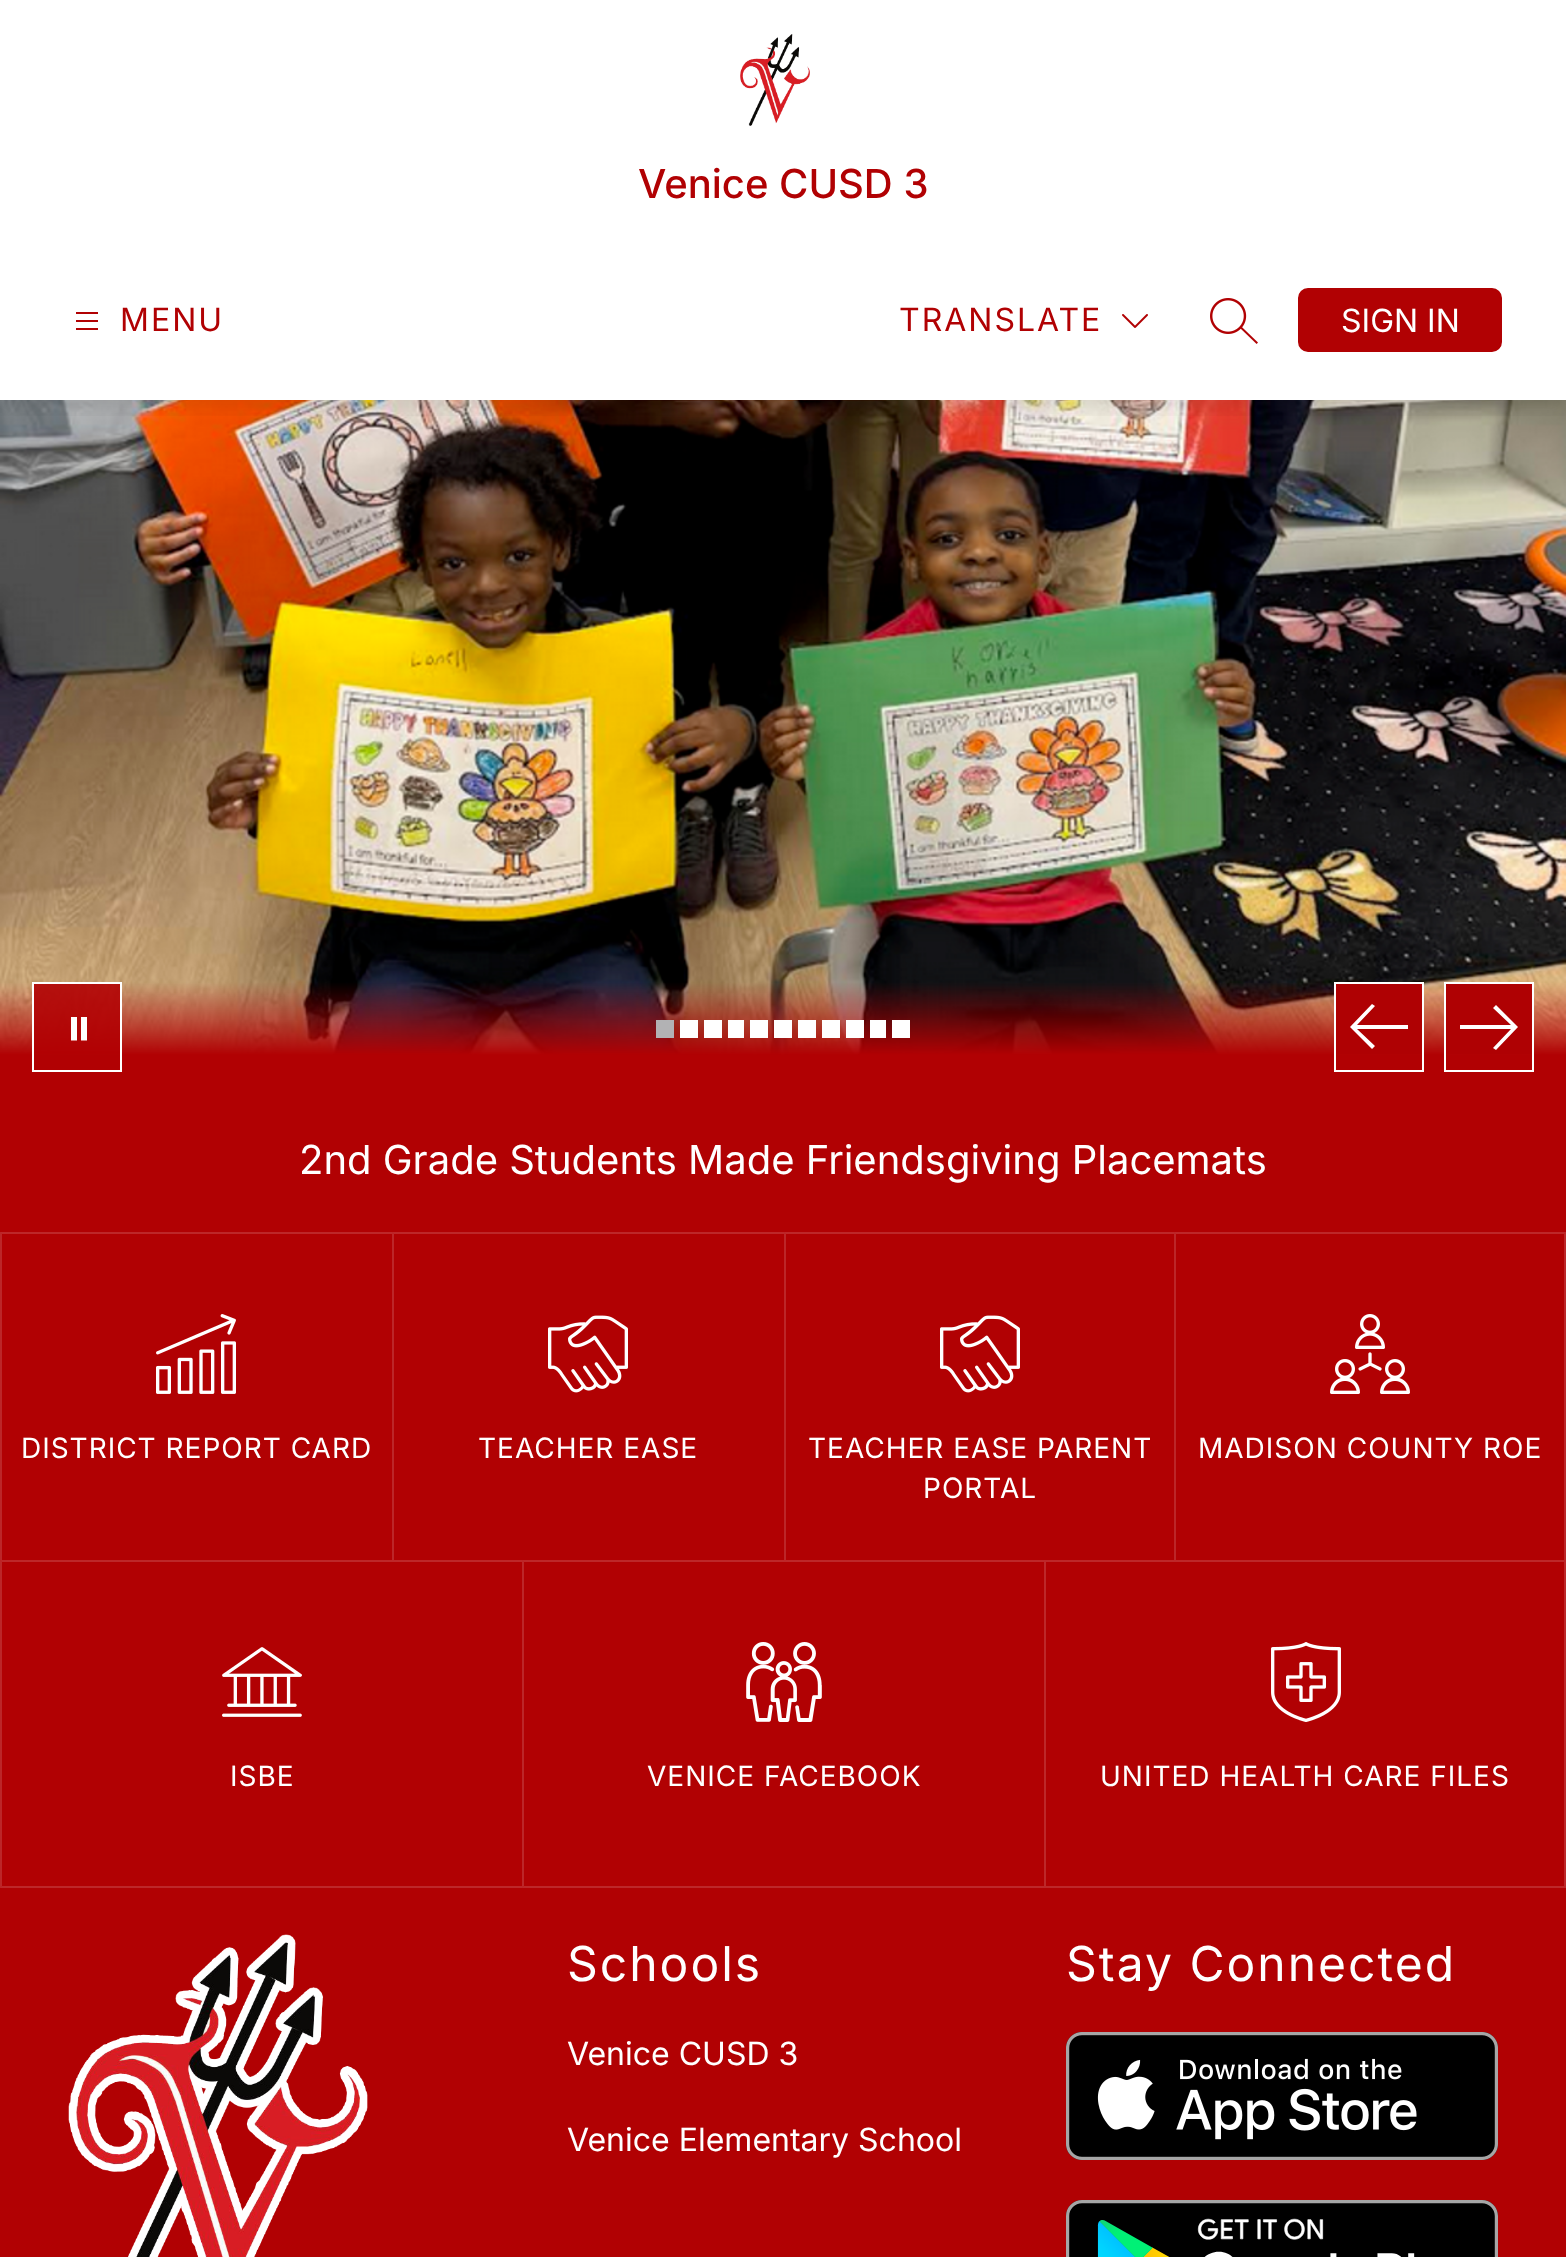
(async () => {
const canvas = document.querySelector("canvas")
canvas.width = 1566
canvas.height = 2257
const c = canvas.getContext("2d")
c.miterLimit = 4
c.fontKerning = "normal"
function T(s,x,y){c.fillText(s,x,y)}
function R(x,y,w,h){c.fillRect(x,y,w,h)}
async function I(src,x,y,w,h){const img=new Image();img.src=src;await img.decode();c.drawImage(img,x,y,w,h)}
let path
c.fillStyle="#fff"
R(0,0,1566,2257)
await I("5.png",0,400,1566,672)
c.save()
c.beginPath()
c.rect(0,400,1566,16)
c.clip()
c.fillStyle="#0000001a"
c.filter="blur(10px)"
c.beginPath()
c.rect(0,8,1566,400)
c.fill()
c.filter="none"
c.restore()
await I("1.png",740,34,70,92)
c.font="500 40px Inter"
c.fillStyle="#b10103"
T("Venice CUSD 3",638,198)
await I("2.png",76,312,22,18)
c.letterSpacing="2px"
c.font="32px Inter"
T("MENU",120,331)
T("TRANSLATE",899,331)
await I("3.png",1122,314,26,14)
await I("4.png",1210,298,48,46)
c.beginPath()
c.roundRect(1299,289,202,62,9)
c.fill()
c.strokeStyle="#b10103"
c.lineWidth=2
c.stroke()
c.letterSpacing="0px"
c.fillStyle="#fff"
T("SIGN IN",1341,332)
c.fillStyle="#b10103"
R(0,1072,1566,160)
c.fillStyle="#b10103e6"
R(34,984,86,70)
path = new Path2D("M33 983h88v88h-88z")
c.strokeStyle="#fff"
c.stroke(path)
c.fillStyle="#fff"
path = new Path2D("M77 1017h-6v23.5h6zm10 0h-6v23.5h6z")
c.fill(path,"evenodd")
c.fillStyle="#b2b2b4"
R(656,1020,18,18)
c.fillStyle="#fff"
R(680,1020,18,18)
R(704,1020,18,18)
R(728,1020,16,18)
R(750,1020,18,18)
R(774,1020,18,18)
R(798,1020,18,18)
R(822,1020,18,18)
R(846,1020,18,18)
R(870,1020,16,18)
R(892,1020,18,18)
c.fillStyle="#af0103"
R(1336,984,86,70)
path = new Path2D("M1423 1071h-88v-88h88z")
c.stroke(path)
c.fillStyle="#fff"
path = new Path2D("M1372 1049l-22-22l22-23l3 2l-18 19h51v4h-51l18 17z")
c.fill(path)
c.fillStyle="#af0103"
R(1446,984,86,70)
path = new Path2D("M1445 983h88v88h-88z")
c.stroke(path)
c.fillStyle="#fff"
path = new Path2D("M1496 1005l22 22l-22 23l-3-2l18-19h-51v-4h51l-18-17z")
c.fill(path)
c.font="40px Inter"
T("2nd Grade Students Made Friendsgiving Placemats",299,1174)
c.fillStyle="#b10103"
R(0,1232,1566,328)
c.fillStyle="#bd2729"
path = new Path2D("M0 1232h392v2h-390z")
c.fill(path)
c.fillStyle="#ffffff26"
path = new Path2D("M0 1560v-328l2 2v326z")
c.fill(path)
await I("6.png",156,1314,80,80)
c.letterSpacing="1px"
c.font="28px Inter"
c.fillStyle="#fff"
T("DISTRICT REPORT CARD",21,1458)
c.fillStyle="#bd2729"
path = new Path2D("M392 1232h392v2h-390z")
c.fill(path)
c.fillStyle="#ffffff26"
path = new Path2D("M392 1560v-328l2 2v326z")
c.fill(path)
await I("7.png",548,1315,80,78)
c.fillStyle="#fff"
T("TEACHER EASE",478,1458)
c.fillStyle="#bd2729"
path = new Path2D("M784 1232h390v2h-388z")
c.fill(path)
c.fillStyle="#ffffff26"
path = new Path2D("M784 1560v-328l2 2v326z")
c.fill(path)
await I("7.png",940,1315,80,78)
c.fillStyle="#fff"
T("TEACHER EASE PARENT",808,1458)
T("PORTAL",923,1498)
c.fillStyle="#bd2729"
path = new Path2D("M1174 1232h392l-2 2h-388z")
c.fill(path)
c.fillStyle="#ffffff26"
path = new Path2D("M1566 1232v328h-2v-326z")
c.fill(path)
path = new Path2D("M1174 1560v-328l2 2v326z")
c.fill(path)
await I("8.png",1330,1314,80,80)
c.fillStyle="#fff"
T("MADISON COUNTY ROE",1198,1458)
c.fillStyle="#b10103"
R(0,1560,1044,328)
c.fillStyle="#bd2729"
path = new Path2D("M0 1560h522v2h-520z")
c.fill(path)
path = new Path2D("M522 1888h-522l2-2h520z")
c.fill(path)
c.fillStyle="#ffffff26"
path = new Path2D("M0 1888v-328l2 2v324z")
c.fill(path)
await I("9.png",222,1647,80,70)
c.fillStyle="#fff"
T("ISBE",230,1786)
c.fillStyle="#bd2729"
path = new Path2D("M522 1560h522v2h-520z")
c.fill(path)
path = new Path2D("M1044 1888h-522l2-2h520z")
c.fill(path)
c.fillStyle="#ffffff26"
path = new Path2D("M522 1888v-328l2 2v324z")
c.fill(path)
await I("10.png",746,1642,76,80)
c.fillStyle="#fff"
T("VENICE FACEBOOK",647,1786)
c.fillStyle="#b10103"
c.beginPath()
c.rect(1045,1561,520,326)
c.fill()
c.strokeStyle="#bd2729"
c.stroke()
await I("11.png",1271,1642,70,80)
c.fillStyle="#fff"
T("UNITED HEALTH CARE FILES",1100,1786)
c.fillStyle="#b10103"
R(0,1888,1566,369)
await I("12.png",68,1934,300,323)
c.letterSpacing="2px"
c.font="48px Inter"
c.fillStyle="#fff"
T("Schools",567,1981)
c.letterSpacing="0px"
c.font="32px Inter"
T("Venice CUSD 3",567,2065)
T("Venice Elementary School",567,2151)
c.letterSpacing="2px"
c.font="48px Inter"
T("Stay Connected",1066,1981)
await I("13.png",1066,2032,432,128)
await I("14.png",1066,2200,432,57)
})()
